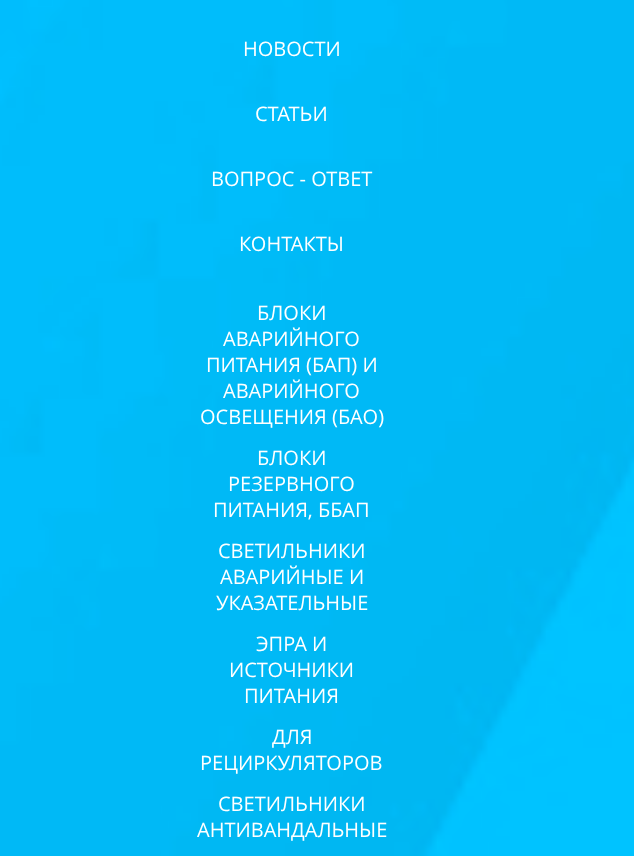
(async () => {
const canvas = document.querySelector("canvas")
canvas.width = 634
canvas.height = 856
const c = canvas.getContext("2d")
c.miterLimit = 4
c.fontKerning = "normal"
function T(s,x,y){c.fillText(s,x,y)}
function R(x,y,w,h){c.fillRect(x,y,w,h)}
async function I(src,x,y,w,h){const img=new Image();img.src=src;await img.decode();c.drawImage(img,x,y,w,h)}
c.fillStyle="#fff"
R(0,0,634,856)
await I("1.png",0,0,634,856)
c.font="20px Open Sans"
T("НОВОСТИ",243,56)
T("СТАТЬИ",255,121)
T("ВОПРОС - ОТВЕТ",211,186)
T("КОНТАКТЫ",239,251)
T("БЛОКИ",257,320)
T("АВАРИЙНОГО",223,346)
T("ПИТАНИЯ (БАП) И",206,372)
T("АВАРИЙНОГО",223,398)
T("ОСВЕЩЕНИЯ (БАО)",200,424)
T("БЛОКИ",257,465)
T("РЕЗЕРВНОГО",228,491)
T("ПИТАНИЯ, ББАП",213,517)
T("СВЕТИЛЬНИКИ",218,558)
T("АВАРИЙНЫЕ И",220,584)
T("УКАЗАТЕЛЬНЫЕ",216,610)
T("ЭПРА И",256,651)
T("ИСТОЧНИКИ",229,677)
T("ПИТАНИЯ",244,703)
T("ДЛЯ",272,744)
T("РЕЦИРКУЛЯТОРОВ",200,770)
T("СВЕТИЛЬНИКИ",218,811)
T("АНТИВАНДАЛЬНЫЕ",197,837)
})()
